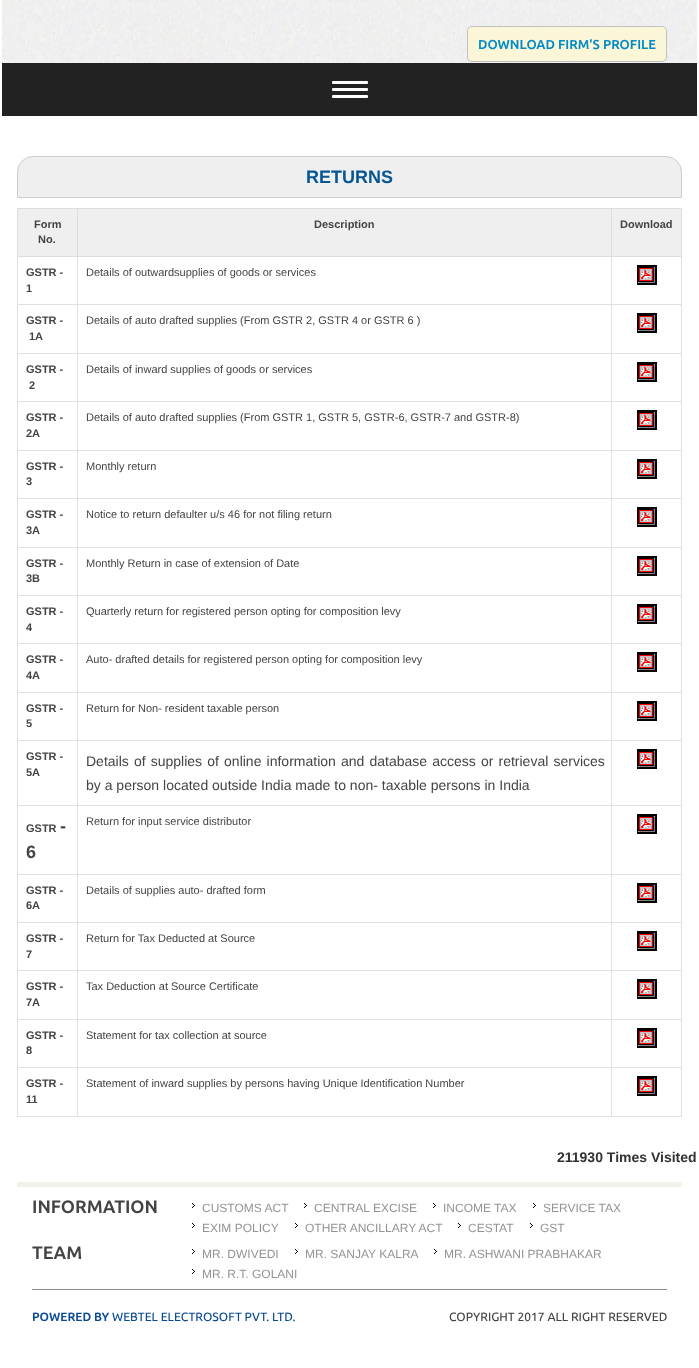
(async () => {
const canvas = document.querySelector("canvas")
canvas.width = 699
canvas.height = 1368
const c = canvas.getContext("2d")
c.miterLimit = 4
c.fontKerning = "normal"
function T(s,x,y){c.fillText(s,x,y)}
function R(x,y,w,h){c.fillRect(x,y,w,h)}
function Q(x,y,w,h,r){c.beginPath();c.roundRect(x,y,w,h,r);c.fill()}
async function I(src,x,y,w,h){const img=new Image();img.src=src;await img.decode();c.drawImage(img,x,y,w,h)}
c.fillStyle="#fff"
R(0,0,699,1368)
await I("1.png",2,0,695,63)
c.fillStyle="#fcf6d9"
c.beginPath()
c.roundRect(467.5,26.5,199,35,4.5)
c.fill()
c.strokeStyle="#c0c0c0"
c.stroke()
c.font="bold 13px Ubuntu"
c.fillStyle="#028cc6"
T("DOWNLOAD FIRM'S PROFILE",478,49)
c.fillStyle="#222"
R(2,63,695,53)
c.fillStyle="#fff"
Q(332,81,36,3,1)
Q(332,88,36,3,1)
Q(332,95,36,3,1)
c.fillStyle="#efefef"
c.beginPath()
c.roundRect(17.5,156.5,664,41,[15.5,15.5,0,0])
c.fill()
c.strokeStyle="#ccc"
c.stroke()
c.font="bold 18px Liberation Sans"
c.fillStyle="#065695"
T("RETURNS",306,183)
c.fillStyle="#dee2e6"
R(681,257,1,860)
R(17,1116,665,1)
R(17,257,1,860)
c.fillStyle="#efefef"
R(18,209,59,47)
c.fillStyle="#ddd"
R(611,208,71,1)
R(681,208,1,49)
c.fillStyle="#dee2e6"
R(611,304,71,1)
R(611,353,71,1)
R(611,401,71,1)
R(611,450,71,1)
R(611,498,71,1)
R(611,547,71,1)
R(611,595,71,1)
R(611,643,71,1)
R(611,692,71,1)
R(611,740,71,1)
R(611,805,71,1)
R(611,874,71,1)
R(611,922,71,1)
R(611,970,71,1)
R(611,1019,71,1)
R(611,1067,71,1)
R(611,1067,1,50)
R(77,1067,535,1)
R(611,1019,1,49)
R(77,1019,535,1)
R(611,970,1,50)
R(77,970,535,1)
R(611,922,1,49)
R(77,922,535,1)
R(611,874,1,49)
R(77,874,535,1)
R(611,805,1,70)
R(77,805,535,1)
R(611,740,1,66)
R(77,740,535,1)
R(611,692,1,49)
R(77,692,535,1)
R(611,643,1,50)
R(77,643,535,1)
R(611,595,1,49)
R(77,595,535,1)
R(611,547,1,49)
R(77,547,535,1)
R(611,498,1,50)
R(77,498,535,1)
R(611,450,1,49)
R(77,450,535,1)
R(611,401,1,50)
R(77,401,535,1)
R(611,353,1,49)
R(77,353,535,1)
R(611,304,1,50)
R(77,304,535,1)
R(611,256,1,49)
c.fillStyle="#ddd"
R(611,256,71,1)
R(611,208,1,49)
R(77,208,535,1)
c.fillStyle="#dee2e6"
R(77,1067,1,50)
R(17,1067,61,1)
R(77,1019,1,49)
R(17,1019,61,1)
R(77,970,1,50)
R(17,970,61,1)
R(77,922,1,49)
R(17,922,61,1)
R(77,874,1,49)
R(17,874,61,1)
R(77,805,1,70)
R(17,805,61,1)
R(77,740,1,66)
R(17,740,61,1)
R(77,692,1,49)
R(17,692,61,1)
R(77,643,1,50)
R(17,643,61,1)
R(77,595,1,49)
R(17,595,61,1)
R(77,547,1,49)
R(17,547,61,1)
R(77,498,1,50)
R(17,498,61,1)
R(77,450,1,49)
R(17,450,61,1)
R(77,401,1,50)
R(17,401,61,1)
R(77,353,1,49)
R(17,353,61,1)
R(77,304,1,50)
R(17,304,61,1)
R(77,256,1,49)
c.fillStyle="#ddd"
R(77,256,535,1)
R(77,208,1,49)
R(17,208,61,1)
R(17,256,61,1)
R(17,208,1,49)
c.font="bold 11px Liberation Sans"
c.fillStyle="#444"
T("Form",34,228)
T("No.",38,243)
c.fillStyle="#efefef"
R(78,209,533,47)
c.fillStyle="#444"
T("Description",314,228)
c.fillStyle="#efefef"
R(612,209,69,47)
c.fillStyle="#444"
T("Download",620,228)
T("GSTR -",26,276)
T("1",26,292)
c.font="11px Liberation Sans"
T("Details of outwardsupplies of goods or services",86,276)
await I("2.png",637,265,20,20)
c.font="bold 11px Liberation Sans"
T("GSTR -",26,324)
T("1A",29,340)
c.font="11px Liberation Sans"
T("Details of auto drafted supplies (From GSTR 2, GSTR 4 or GSTR 6 )",86,324)
await I("2.png",637,313,20,20)
c.font="bold 11px Liberation Sans"
T("GSTR -",26,373)
T("2",29,389)
c.font="11px Liberation Sans"
T("Details of inward supplies of goods or services",86,373)
await I("2.png",637,362,20,20)
c.font="bold 11px Liberation Sans"
T("GSTR -",26,421)
T("2A",26,437)
c.font="11px Liberation Sans"
T("Details of auto drafted supplies (From GSTR 1, GSTR 5, GSTR-6, GSTR-7 and GSTR-8)",86,421)
await I("2.png",637,410,20,20)
c.font="bold 11px Liberation Sans"
T("GSTR -",26,470)
T("3",26,485)
c.font="11px Liberation Sans"
T("Monthly return",86,470)
await I("2.png",637,459,20,20)
c.font="bold 11px Liberation Sans"
T("GSTR -",26,518)
T("3A",26,534)
c.font="11px Liberation Sans"
T("Notice to return defaulter u/s 46 for not filing return",86,518)
await I("2.png",637,507,20,20)
c.font="bold 11px Liberation Sans"
T("GSTR -",26,567)
T("3B",26,582)
c.font="11px Liberation Sans"
T("Monthly Return in case of extension of Date",86,567)
await I("2.png",637,556,20,20)
c.font="bold 11px Liberation Sans"
T("GSTR -",26,615)
T("4",26,631)
c.font="11px Liberation Sans"
T("Quarterly return for registered person opting for composition levy",86,615)
await I("2.png",637,604,20,20)
c.font="bold 11px Liberation Sans"
T("GSTR -",26,663)
T("4A",26,679)
c.font="11px Liberation Sans"
T("Auto- drafted details for registered person opting for composition levy",86,663)
await I("2.png",637,652,20,20)
c.font="bold 11px Liberation Sans"
T("GSTR -",26,712)
T("5",26,727)
c.font="11px Liberation Sans"
T("Return for Non- resident taxable person",86,712)
await I("2.png",637,701,20,20)
c.font="bold 11px Liberation Sans"
T("GSTR -",26,760)
T("5A",26,776)
c.wordSpacing="1.25px"
c.font="14px Liberation Sans"
T("Details of supplies of online information and database access or retrieval services",86,766)
c.wordSpacing="0px"
T("by a person located outside India made to non- taxable persons in India",86,790)
await I("2.png",637,749,20,20)
c.font="11px Liberation Sans"
T("Return for input service distributor",86,825)
await I("2.png",637,814,20,20)
c.font="bold 11px Liberation Sans"
T("GSTR",26,832)
c.font="bold 18px Liberation Sans"
T("-",60,832)
T("6",26,858)
c.font="bold 11px Liberation Sans"
T("GSTR -",26,894)
T("6A",26,909)
c.font="11px Liberation Sans"
T("Details of supplies auto- drafted form",86,894)
await I("2.png",637,883,20,20)
c.font="bold 11px Liberation Sans"
T("GSTR -",26,942)
T("7",26,958)
c.font="11px Liberation Sans"
T("Return for Tax Deducted at Source",86,942)
await I("2.png",637,931,20,20)
c.font="bold 11px Liberation Sans"
T("GSTR -",26,990)
T("7A",26,1006)
c.font="11px Liberation Sans"
T("Tax Deduction at Source Certificate",86,990)
await I("2.png",637,979,20,20)
c.font="bold 11px Liberation Sans"
T("GSTR -",26,1039)
T("8",26,1054)
c.font="11px Liberation Sans"
T("Statement for tax collection at source",86,1039)
await I("2.png",637,1028,20,20)
c.font="bold 11px Liberation Sans"
T("GSTR -",26,1087)
T("11",26,1103)
c.font="11px Liberation Sans"
T("Statement of inward supplies by persons having Unique Identification Number",86,1087)
await I("2.png",637,1076,20,20)
c.font="bold 14px Liberation Sans"
c.fillStyle="#333"
T("211930 Times Visited",557,1162)
c.fillStyle="#f2f2eb"
R(17,1182,665,5)
c.font="bold 18px Ubuntu"
c.fillStyle="#444"
T("INFORMATION",32,1213)
await I("3.png",192,1203,3,5)
c.font="12px Liberation Sans"
c.fillStyle="#939393"
T("CUSTOMS ACT",202,1212)
await I("3.png",304,1203,3,5)
T("CENTRAL EXCISE",314,1212)
await I("3.png",433,1203,3,5)
T("INCOME TAX",443,1212)
await I("3.png",533,1203,3,5)
T("SERVICE TAX",543,1212)
await I("3.png",192,1223,3,5)
T("EXIM POLICY",202,1232)
await I("3.png",295,1223,3,5)
T("OTHER ANCILLARY ACT",305,1232)
await I("3.png",458,1223,3,5)
T("CESTAT",468,1232)
await I("3.png",530,1223,3,5)
T("GST",540,1232)
c.font="bold 18px Ubuntu"
c.fillStyle="#444"
T("TEAM",32,1259)
await I("3.png",192,1249,3,5)
c.font="12px Liberation Sans"
c.fillStyle="#939393"
T("MR. DWIVEDI",202,1258)
await I("3.png",295,1249,3,5)
T("MR. SANJAY KALRA",305,1258)
await I("3.png",434,1249,3,5)
T("MR. ASHWANI PRABHAKAR",444,1258)
await I("3.png",192,1269,3,5)
T("MR. R.T. GOLANI",202,1278)
c.fillStyle="#8f8e8e"
R(32,1289,635,1)
c.font="bold 12px Ubuntu"
c.fillStyle="#084a93"
T("POWERED BY",32,1321)
c.font="500 12px Ubuntu"
T("WEBTEL ELECTROSOFT PVT. LTD.",112,1321)
c.fillStyle="#444"
T("COPYRIGHT 2017 ALL RIGHT RESERVED",449,1321)
})()
